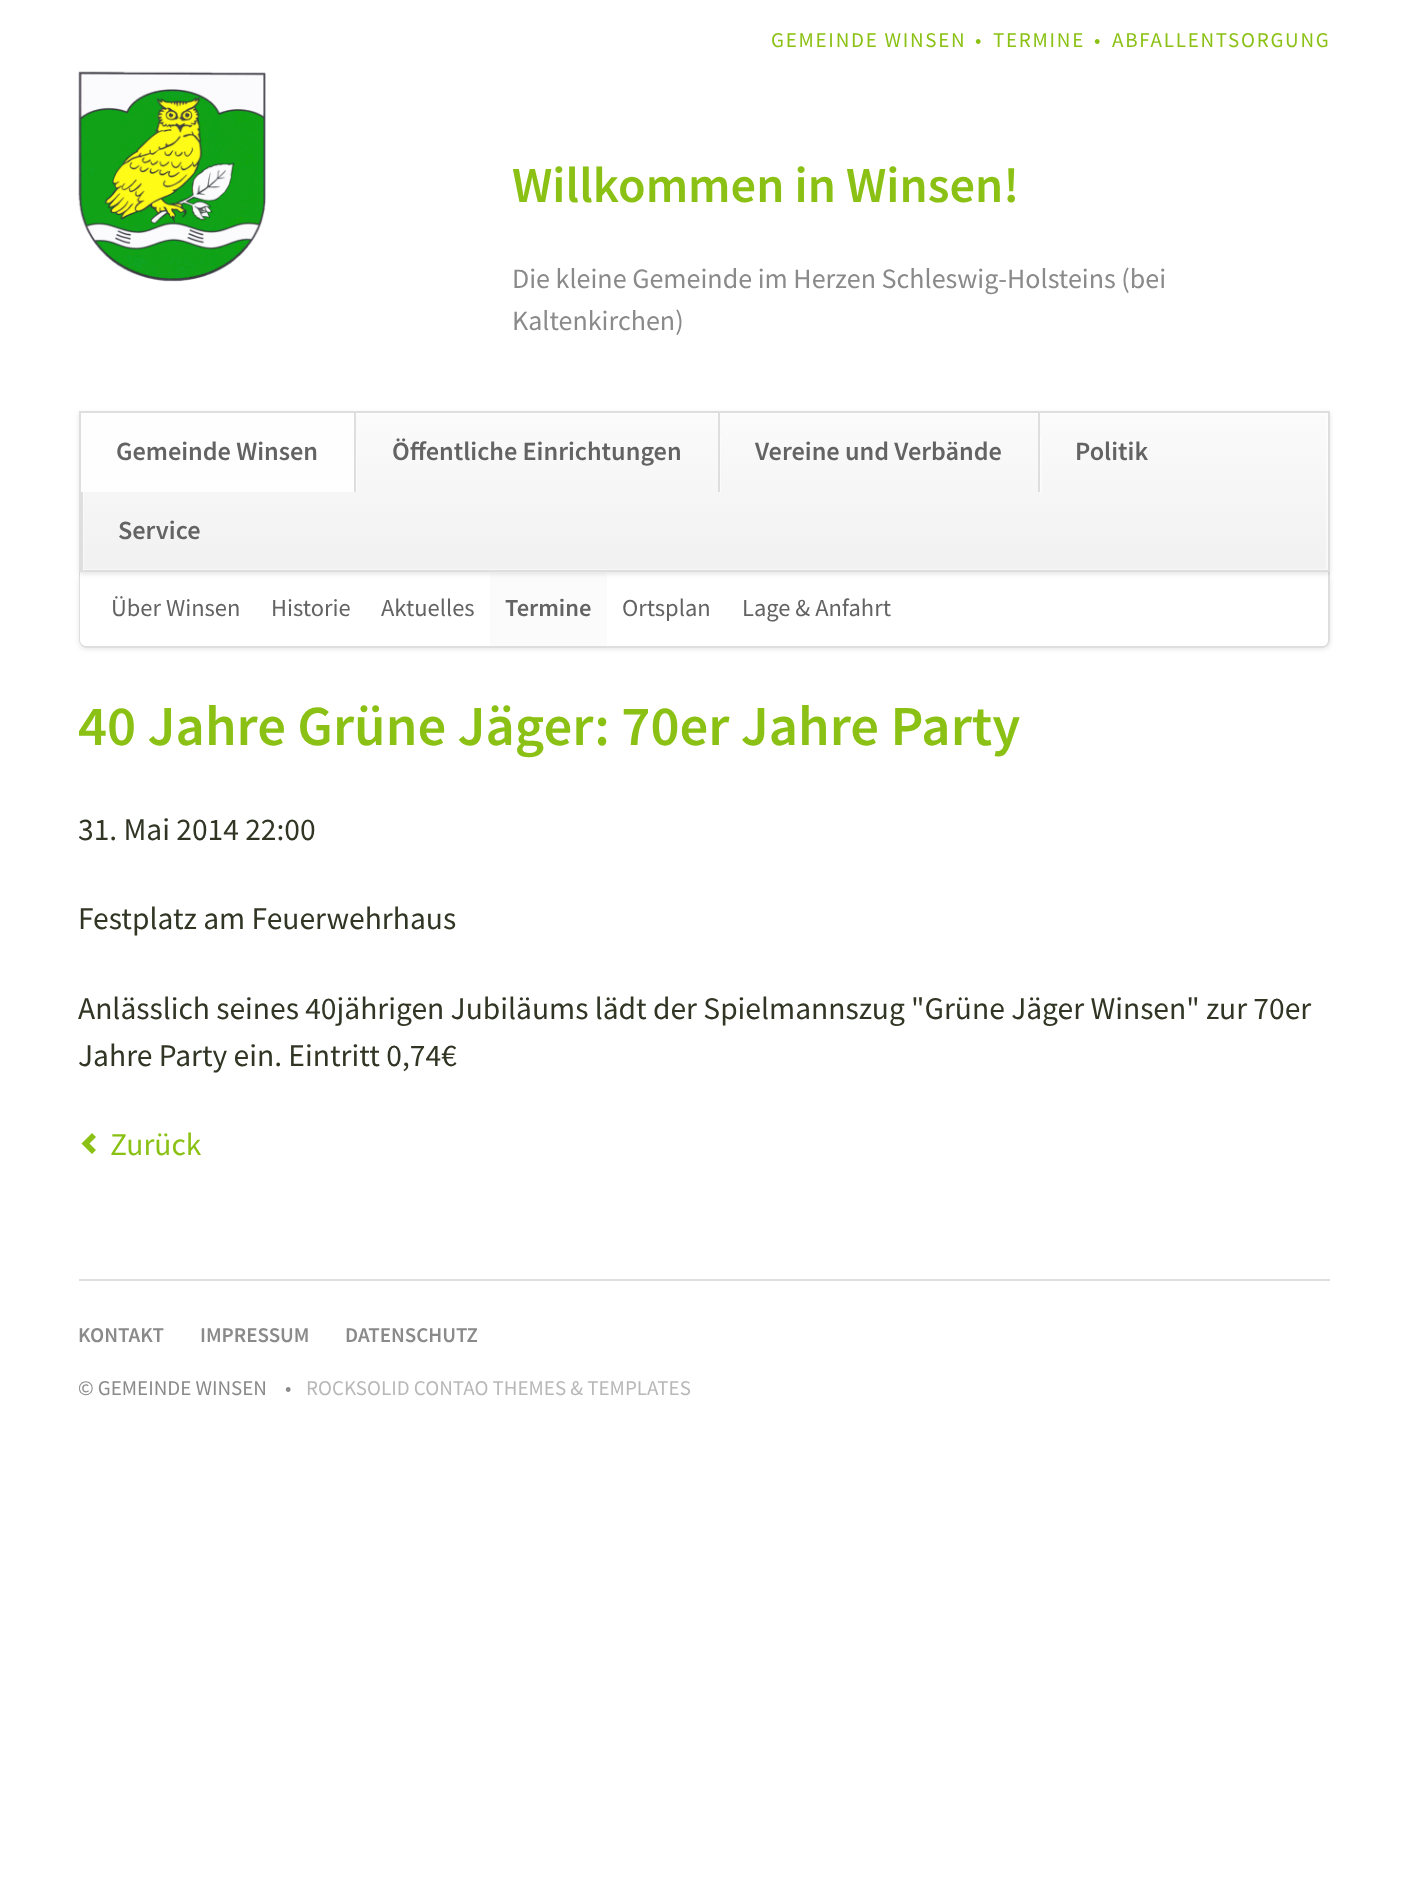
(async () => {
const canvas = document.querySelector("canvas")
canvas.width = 1408
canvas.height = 1885
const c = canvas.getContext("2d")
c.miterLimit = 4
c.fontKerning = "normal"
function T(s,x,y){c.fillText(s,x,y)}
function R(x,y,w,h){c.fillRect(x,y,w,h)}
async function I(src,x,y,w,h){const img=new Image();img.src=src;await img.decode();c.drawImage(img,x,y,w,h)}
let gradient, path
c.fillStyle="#fff"
R(0,0,1408,1885)
c.letterSpacing="1.75px"
c.font="21px Source Sans Pro"
c.fillStyle="#8ac114"
T("GEMEINDE WINSEN",771,47)
T("•",975,47)
T("TERMINE",993,47)
T("•",1094,47)
T("ABFALLENTSORGUNG",1112,47)
await I("1.png",78,71,188,211)
c.letterSpacing="0px"
c.font="600 50.4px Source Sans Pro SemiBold"
T("Willkommen in Winsen!",512,202)
c.font="28px Source Sans Pro"
c.fillStyle="#8a8a8a"
T("Die kleine Gemeinde im Herzen Schleswig-Holsteins (bei",512,288)
T("Kaltenkirchen)",512,330)
c.save()
path = new Path2D("M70 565h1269v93h-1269zm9 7h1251v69c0 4-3 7-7 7h-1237c-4 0-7-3-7-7z")
c.clip(path,"evenodd")
c.fillStyle="#0000001a"
c.filter="blur(2.5px)"
c.beginPath()
c.roundRect(79,574,1251,75,7)
c.fill()
c.filter="none"
c.restore()
c.fillStyle="#dedede"
path = new Path2D("M79 572h1251v68c0 4-3 8-7 8h-1237c-4 0-7-4-7-8zm1 0h1248v68c0 3-2 6-5 6h-1237c-3 0-6-3-6-6z")
c.fill(path,"evenodd")
c.fillStyle="#fbfbfb"
R(490,573,117,73)
c.fillStyle="#0000001a"
c.filter="blur(2.5px)"
c.beginPath()
c.rect(79,413,1251,161)
c.fill()
c.filter="none"
gradient = c.createLinearGradient(704,413,704,571)
gradient.addColorStop(0,"#fbfbfb")
gradient.addColorStop(1,"#f1f1f1")
c.fillStyle = gradient
R(83,413,1245,157)
c.strokeStyle="#ffffff80"
c.lineWidth=2
c.strokeRect(82,414,1245,156)
c.strokeStyle="#dedede"
c.strokeRect(80,412,1249,159)
c.fillStyle="#fefefe"
R(81,413,273,79)
c.font="600 26.25px Source Sans Pro SemiBold"
c.fillStyle="#636363"
T("Gemeinde Winsen",116,460)
c.fillStyle="#ffffff80"
R(356,437,1,55)
c.fillStyle="#dedede"
R(354,413,2,79)
c.fillStyle="#636363"
T("Öffentliche Einrichtungen",392,460)
c.fillStyle="#ffffff80"
R(720,437,1,55)
c.fillStyle="#dedede"
R(718,413,2,79)
c.fillStyle="#636363"
T("Vereine und Verbände",755,460)
c.fillStyle="#ffffff80"
R(1040,437,2,55)
c.fillStyle="#dedede"
R(1038,413,2,79)
c.fillStyle="#636363"
T("Politik",1075,460)
c.fillStyle="#ffffff80"
R(83,492,1,79)
c.fillStyle="#dedede"
R(81,492,2,79)
c.fillStyle="#636363"
T("Service",118,539)
c.font="24.5px Source Sans Pro"
T("Über Winsen",111,616)
T("Historie",271,616)
T("Aktuelles",381,616)
c.font="600 24.5px Source Sans Pro SemiBold"
T("Termine",505,616)
c.font="24.5px Source Sans Pro"
T("Ortsplan",622,616)
T("Lage & Anfahrt",742,616)
c.font="600 56.75px Source Sans Pro SemiBold"
c.fillStyle="#8ac114"
T("40 Jahre Grüne Jäger: 70er Jahre Party",78,745)
c.font="31.5px Source Sans Pro"
c.fillStyle="#303524"
T("31. Mai 2014 22:00",78,840)
T("Festplatz am Feuerwehrhaus",78,929)
T("Anlässlich seines 40jährigen Jubiläums lädt der Spielmannszug \"Grüne Jäger Winsen\" zur 70er",78,1019)
T("Jahre Party ein. Eintritt 0,74€",78,1066)
c.fillStyle="#8ac114"
path = new Path2D("M92 1154l4-4l-6.5-6.5l6.5-6.5l-4-4l-10.5 10.5z")
c.fill(path)
T("Zurück",110,1155)
c.fillStyle="#dedede"
R(79,1279,1251,2)
c.font="600 21px Source Sans Pro SemiBold"
c.fillStyle="#8a8a8a"
T("KONTAKT",78,1342)
T("IMPRESSUM",200,1342)
T("DATENSCHUTZ",345,1342)
c.font="21px Source Sans Pro"
T("© GEMEINDE WINSEN",78,1395)
T("•",285,1395)
c.fillStyle="#b8b8b8"
T("ROCKSOLID CONTAO THEMES & TEMPLATES",306,1395)
})()
